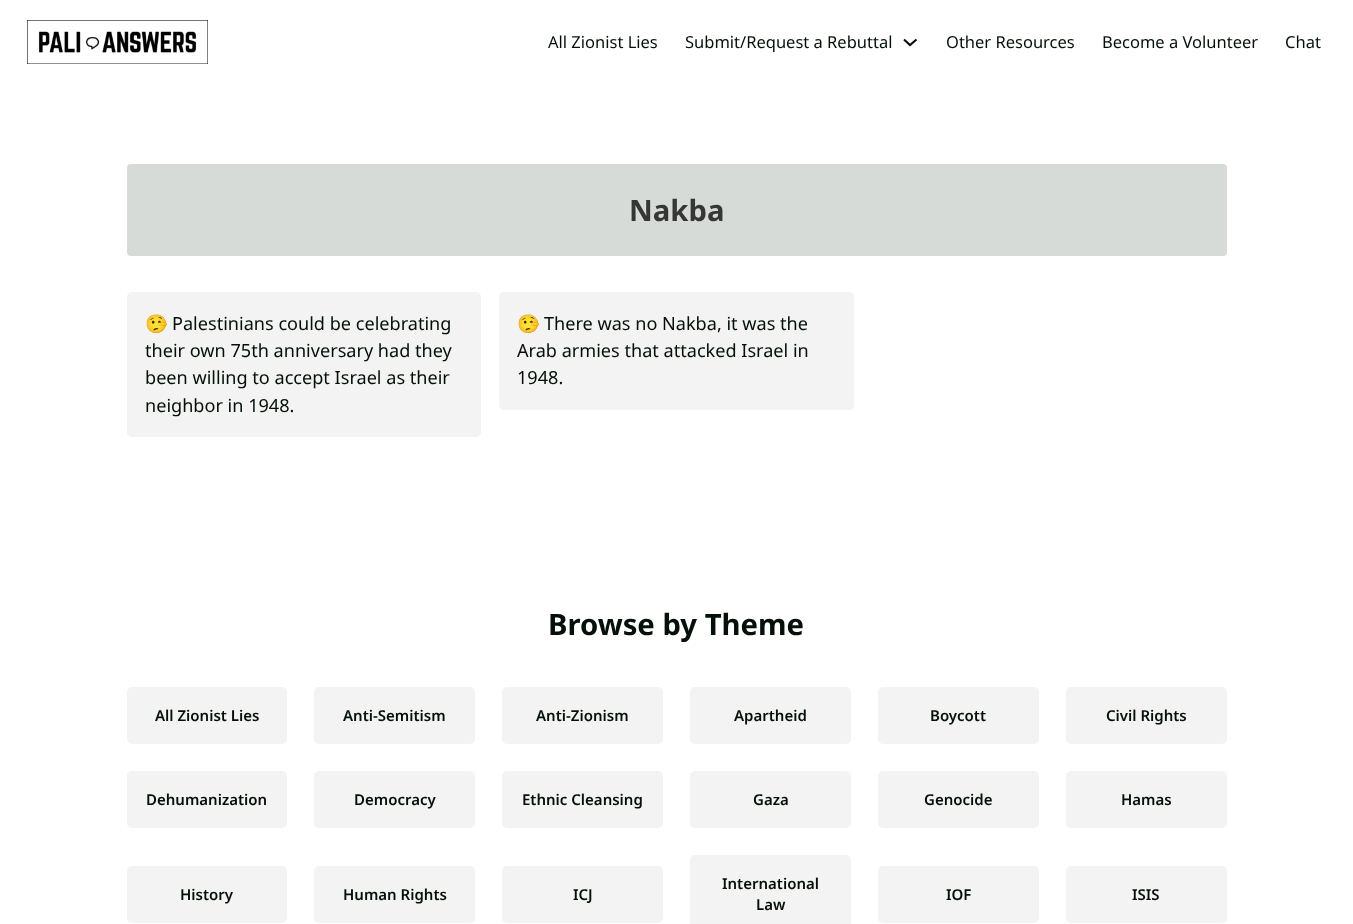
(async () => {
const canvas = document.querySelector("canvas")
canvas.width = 1353
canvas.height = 924
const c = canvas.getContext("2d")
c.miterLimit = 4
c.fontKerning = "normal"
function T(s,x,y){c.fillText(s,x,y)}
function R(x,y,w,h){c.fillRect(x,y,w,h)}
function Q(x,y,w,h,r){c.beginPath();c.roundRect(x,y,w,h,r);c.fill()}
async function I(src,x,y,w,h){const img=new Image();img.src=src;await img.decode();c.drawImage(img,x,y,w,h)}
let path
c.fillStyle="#fff"
R(0,0,1353,924)
await I("1.png",27,20,181,44)
c.font="16.5px Noto Sans"
c.fillStyle="#041008"
T("All Zionist Lies",548,48)
T("Submit/Request a Rebuttal",685,48)
path = new Path2D("M904 39.5l6 5.5l6.5-5.5")
c.strokeStyle="#041008"
c.lineWidth=2.1
c.stroke(path)
T("Other Resources",946,48)
T("Become a Volunteer",1102,48)
T("Chat",1285,48)
c.fillStyle="#d7dbd8"
Q(127,164,1100,92,4)
c.font="bold 29.25px Noto Sans"
c.fillStyle="#363636"
T("Nakba",629,221)
c.fillStyle="#f2f3f2"
Q(127,292,354,145,5)
c.font="18.1px Noto Color Emoji"
c.fillStyle="#041008"
T("🤥",145,330)
c.font="18.1px Noto Sans"
T("Palestinians could be celebrating",172,330)
T("their own 75th anniversary had they",145,357)
T("been willing to accept Israel as their",145,384)
T("neighbor in 1948.",145,412)
c.fillStyle="#f2f3f2"
Q(499,292,355,118,5)
c.font="18.1px Noto Color Emoji"
c.fillStyle="#041008"
T("🤥",517,330)
c.font="18.1px Noto Sans"
T("There was no Nakba, it was the",544,330)
T("Arab armies that attacked Israel in",517,357)
T("1948.",517,384)
c.font="bold 29.25px Noto Sans"
T("Browse by Theme",548,635)
c.fillStyle="#f2f3f2"
Q(127,687,160,57,5)
c.font="600 15px Noto Sans"
c.fillStyle="#041008"
T("All Zionist Lies",155,721)
c.fillStyle="#f2f3f2"
Q(314,687,161,57,5)
c.fillStyle="#041008"
T("Anti-Semitism",343,721)
c.fillStyle="#f2f3f2"
Q(502,687,161,57,5)
c.fillStyle="#041008"
T("Anti-Zionism",536,721)
c.fillStyle="#f2f3f2"
Q(690,687,161,57,5)
c.fillStyle="#041008"
T("Apartheid",734,721)
c.fillStyle="#f2f3f2"
Q(878,687,161,57,5)
c.fillStyle="#041008"
T("Boycott",930,721)
c.fillStyle="#f2f3f2"
Q(1066,687,161,57,5)
c.fillStyle="#041008"
T("Civil Rights",1106,721)
c.fillStyle="#f2f3f2"
Q(127,771,160,57,5)
c.fillStyle="#041008"
T("Dehumanization",146,805)
c.fillStyle="#f2f3f2"
Q(314,771,161,57,5)
c.fillStyle="#041008"
T("Democracy",354,805)
c.fillStyle="#f2f3f2"
Q(502,771,161,57,5)
c.fillStyle="#041008"
T("Ethnic Cleansing",522,805)
c.fillStyle="#f2f3f2"
Q(690,771,161,57,5)
c.fillStyle="#041008"
T("Gaza",753,805)
c.fillStyle="#f2f3f2"
Q(878,771,161,57,5)
c.fillStyle="#041008"
T("Genocide",924,805)
c.fillStyle="#f2f3f2"
Q(1066,771,161,57,5)
c.fillStyle="#041008"
T("Hamas",1121,805)
c.fillStyle="#f2f3f2"
Q(127,866,160,57,5)
c.fillStyle="#041008"
T("History",180,900)
c.fillStyle="#f2f3f2"
Q(314,866,161,57,5)
c.fillStyle="#041008"
T("Human Rights",343,900)
c.fillStyle="#f2f3f2"
Q(502,866,161,57,5)
c.fillStyle="#041008"
T("ICJ",573,900)
c.fillStyle="#f2f3f2"
Q(690,855,161,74,5)
c.fillStyle="#041008"
T("International",722,889)
T("Law",756,910)
c.fillStyle="#f2f3f2"
Q(878,866,161,57,5)
c.fillStyle="#041008"
T("IOF",946,900)
c.fillStyle="#f2f3f2"
Q(1066,866,161,57,5)
c.fillStyle="#041008"
T("ISIS",1132,900)
})()
